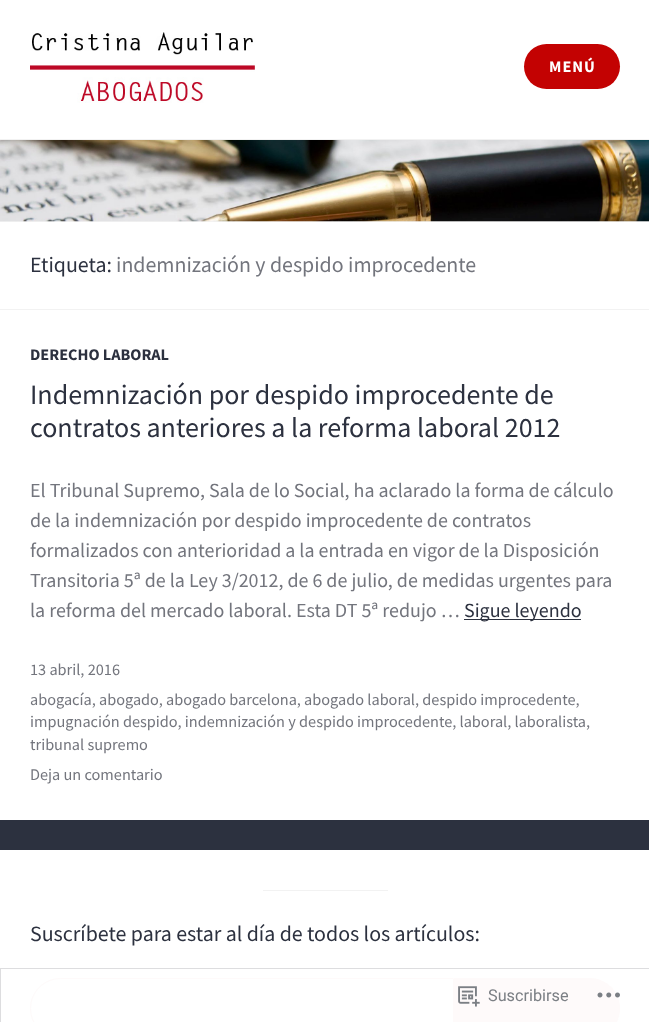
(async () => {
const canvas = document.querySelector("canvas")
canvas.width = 649
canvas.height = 1022
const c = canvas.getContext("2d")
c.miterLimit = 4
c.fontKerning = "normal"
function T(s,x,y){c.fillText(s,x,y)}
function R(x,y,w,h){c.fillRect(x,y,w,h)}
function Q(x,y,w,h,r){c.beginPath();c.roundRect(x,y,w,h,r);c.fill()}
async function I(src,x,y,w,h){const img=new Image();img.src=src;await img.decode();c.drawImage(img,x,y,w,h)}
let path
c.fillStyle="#fff"
R(0,0,649,1022)
c.fillStyle="#f2f2f2"
R(0,139,649,1)
await I("1.png",30,32,225,71)
c.fillStyle="#c30202"
Q(524,44,96,45,22.5)
c.letterSpacing="1px"
c.font="bold 16.25px Source Sans Pro"
c.fillStyle="#fff"
T("MENÚ",549,72)
c.fillStyle="#f2f2f2"
R(0,221,649,1)
await I("2.png",0,140,649,82)
R(0,309,649,1)
c.letterSpacing="0px"
c.font="21.9px Source Sans Pro"
c.fillStyle="#2c313f"
T("Etiqueta:",30,272)
c.fillStyle="#73757d"
T("indemnización y despido improcedente",116,272)
c.font="bold 16.25px Source Sans Pro"
c.fillStyle="#2c313f"
T("DERECHO LABORAL",30,360)
c.font="28px Source Sans Pro"
T("Indemnización por despido improcedente de",30,404)
T("contratos anteriores a la reforma laboral 2012",30,437)
c.font="20px Source Sans Pro"
c.fillStyle="#73757d"
T("El Tribunal Supremo, Sala de lo Social, ha aclarado la forma de cálculo",30,497)
T("de la indemnización por despido improcedente de contratos",30,527)
T("formalizados con anterioridad a la entrada en vigor de la Disposición",30,557)
T("Transitoria 5ª de la Ley 3/2012, de 6 de julio, de medidas urgentes para",30,587)
T("la reforma del mercado laboral. Esta DT 5ª redujo …",30,617)
c.fillStyle="#2c313f"
R(464,619,117,1)
T("Sigue leyendo",464,617)
c.font="16.25px Source Sans Pro"
c.fillStyle="#73757d"
T("13 abril, 2016",30,675)
T("abogacía, abogado, abogado barcelona, abogado laboral, despido improcedente,",30,705)
T("impugnación despido, indemnización y despido improcedente, laboral, laboralista,",30,727)
T("tribunal supremo",30,750)
T("Deja un comentario",30,780)
c.fillStyle="#2c313f"
R(0,820,649,30)
c.fillStyle="#f2f2f2"
R(263,890,125,1)
c.font="21.9px Source Sans Pro"
c.fillStyle="#2c313f"
T("Suscríbete para estar al día de todos los artículos:",30,941)
path = new Path2D("M60.5 978.5h393v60h-393c-16.5 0-30-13.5-30-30c0-16.5 13.5-30 30-30z")
c.strokeStyle="#fefafa"
c.stroke(path)
c.fillStyle="#fefafa"
path = new Path2D("M454 978h135.5c17 0 30.5 13.5 30.5 30.5c0 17-13.5 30.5-30.5 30.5h-135.5z")
c.fill(path)
c.strokeStyle="#dddddf"
c.strokeRect(.5,968.5,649,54)
await I("3.png",458,986,22,21)
c.font="16.25px Roboto"
c.fillStyle="#7b7f84"
T("Suscribirse",488,1001)
await I("4.png",597,992,23,6)
})()
